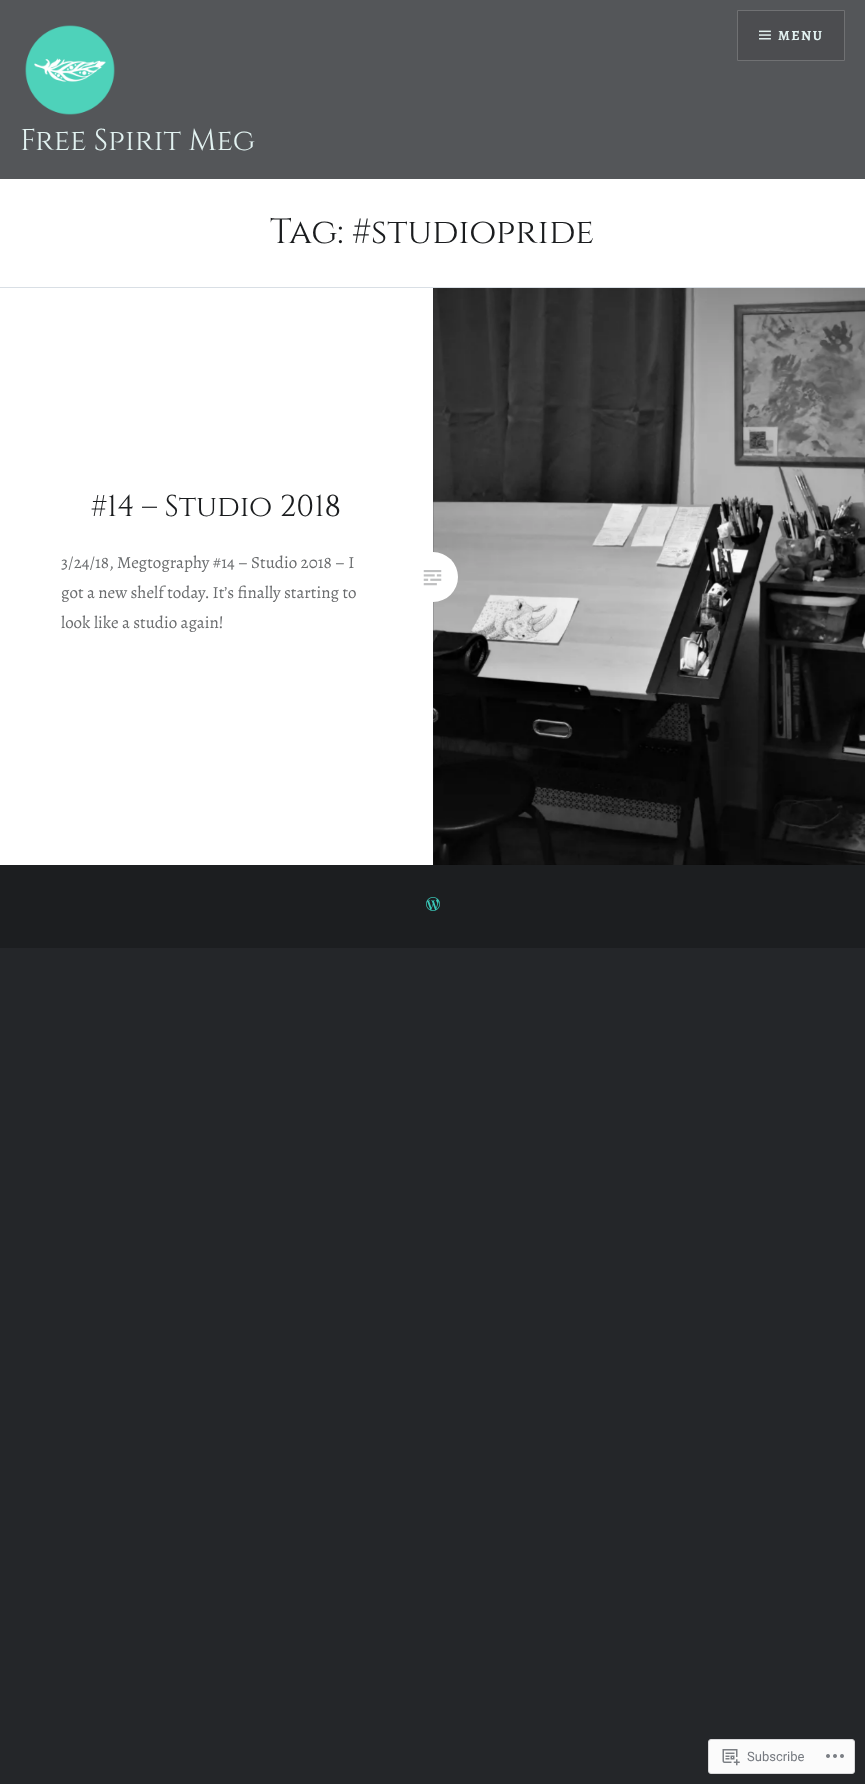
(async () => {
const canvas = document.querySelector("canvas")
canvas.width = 865
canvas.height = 1784
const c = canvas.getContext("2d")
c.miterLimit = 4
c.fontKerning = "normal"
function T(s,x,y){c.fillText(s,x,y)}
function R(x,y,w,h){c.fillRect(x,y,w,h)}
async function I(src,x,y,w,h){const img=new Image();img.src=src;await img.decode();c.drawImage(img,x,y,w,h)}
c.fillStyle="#242629"
R(0,0,865,1784)
c.fillStyle="#545659"
R(0,0,865,179)
c.fillStyle="#4c4d50"
c.beginPath()
c.rect(737.5,10.5,107,50)
c.fill()
c.strokeStyle="#707173"
c.stroke()
await I("1.png",759,30,12,10)
c.letterSpacing="1.5px"
c.font="bold 14px Alegreya"
c.fillStyle="#e2f2f1"
T("MENU",778,40)
await I("2.png",25,25,90,90)
c.letterSpacing="0px"
c.font="30px Cinzel"
T("Free Spirit Meg",20,150)
c.fillStyle="#fff"
R(0,179,865,108)
c.fillStyle="#d9dfe5"
R(0,287,865,1)
c.font="35px Cinzel"
c.fillStyle="#1a1c1e"
T("Tag: #studiopride",270,243)
c.fillStyle="#fff"
R(0,288,433,577)
c.font="30px Cinzel"
c.fillStyle="#1a1c1e"
T("#14 – Studio 2018",91,516)
c.font="17px Alegreya"
c.fillStyle="#6a6c6e"
T("3/24/18, Megtography #14 – Studio 2018 – I",61,568)
T("got a new shelf today. It’s finally starting to",61,598)
T("look like a studio again!",61,628)
await I("4.png",433,288,432,577)
c.fillStyle="#fff"
c.beginPath()
c.arc(433,577,25,0,7)
c.fill()
await I("3.png",423,570,19,16)
c.fillStyle="#1c1e20"
R(0,865,865,83)
await I("5.png",426,897,14,14)
c.fillStyle="#fbfbfb"
c.beginPath()
c.roundRect(708.5,1739.5,146,34,2.5)
c.fill()
c.strokeStyle="#d8d8da"
c.stroke()
await I("6.png",722,1749,18,17)
c.font="13px Roboto"
c.fillStyle="#767a80"
T("Subscribe",747,1761)
await I("7.png",826,1754,18,4)
})()
